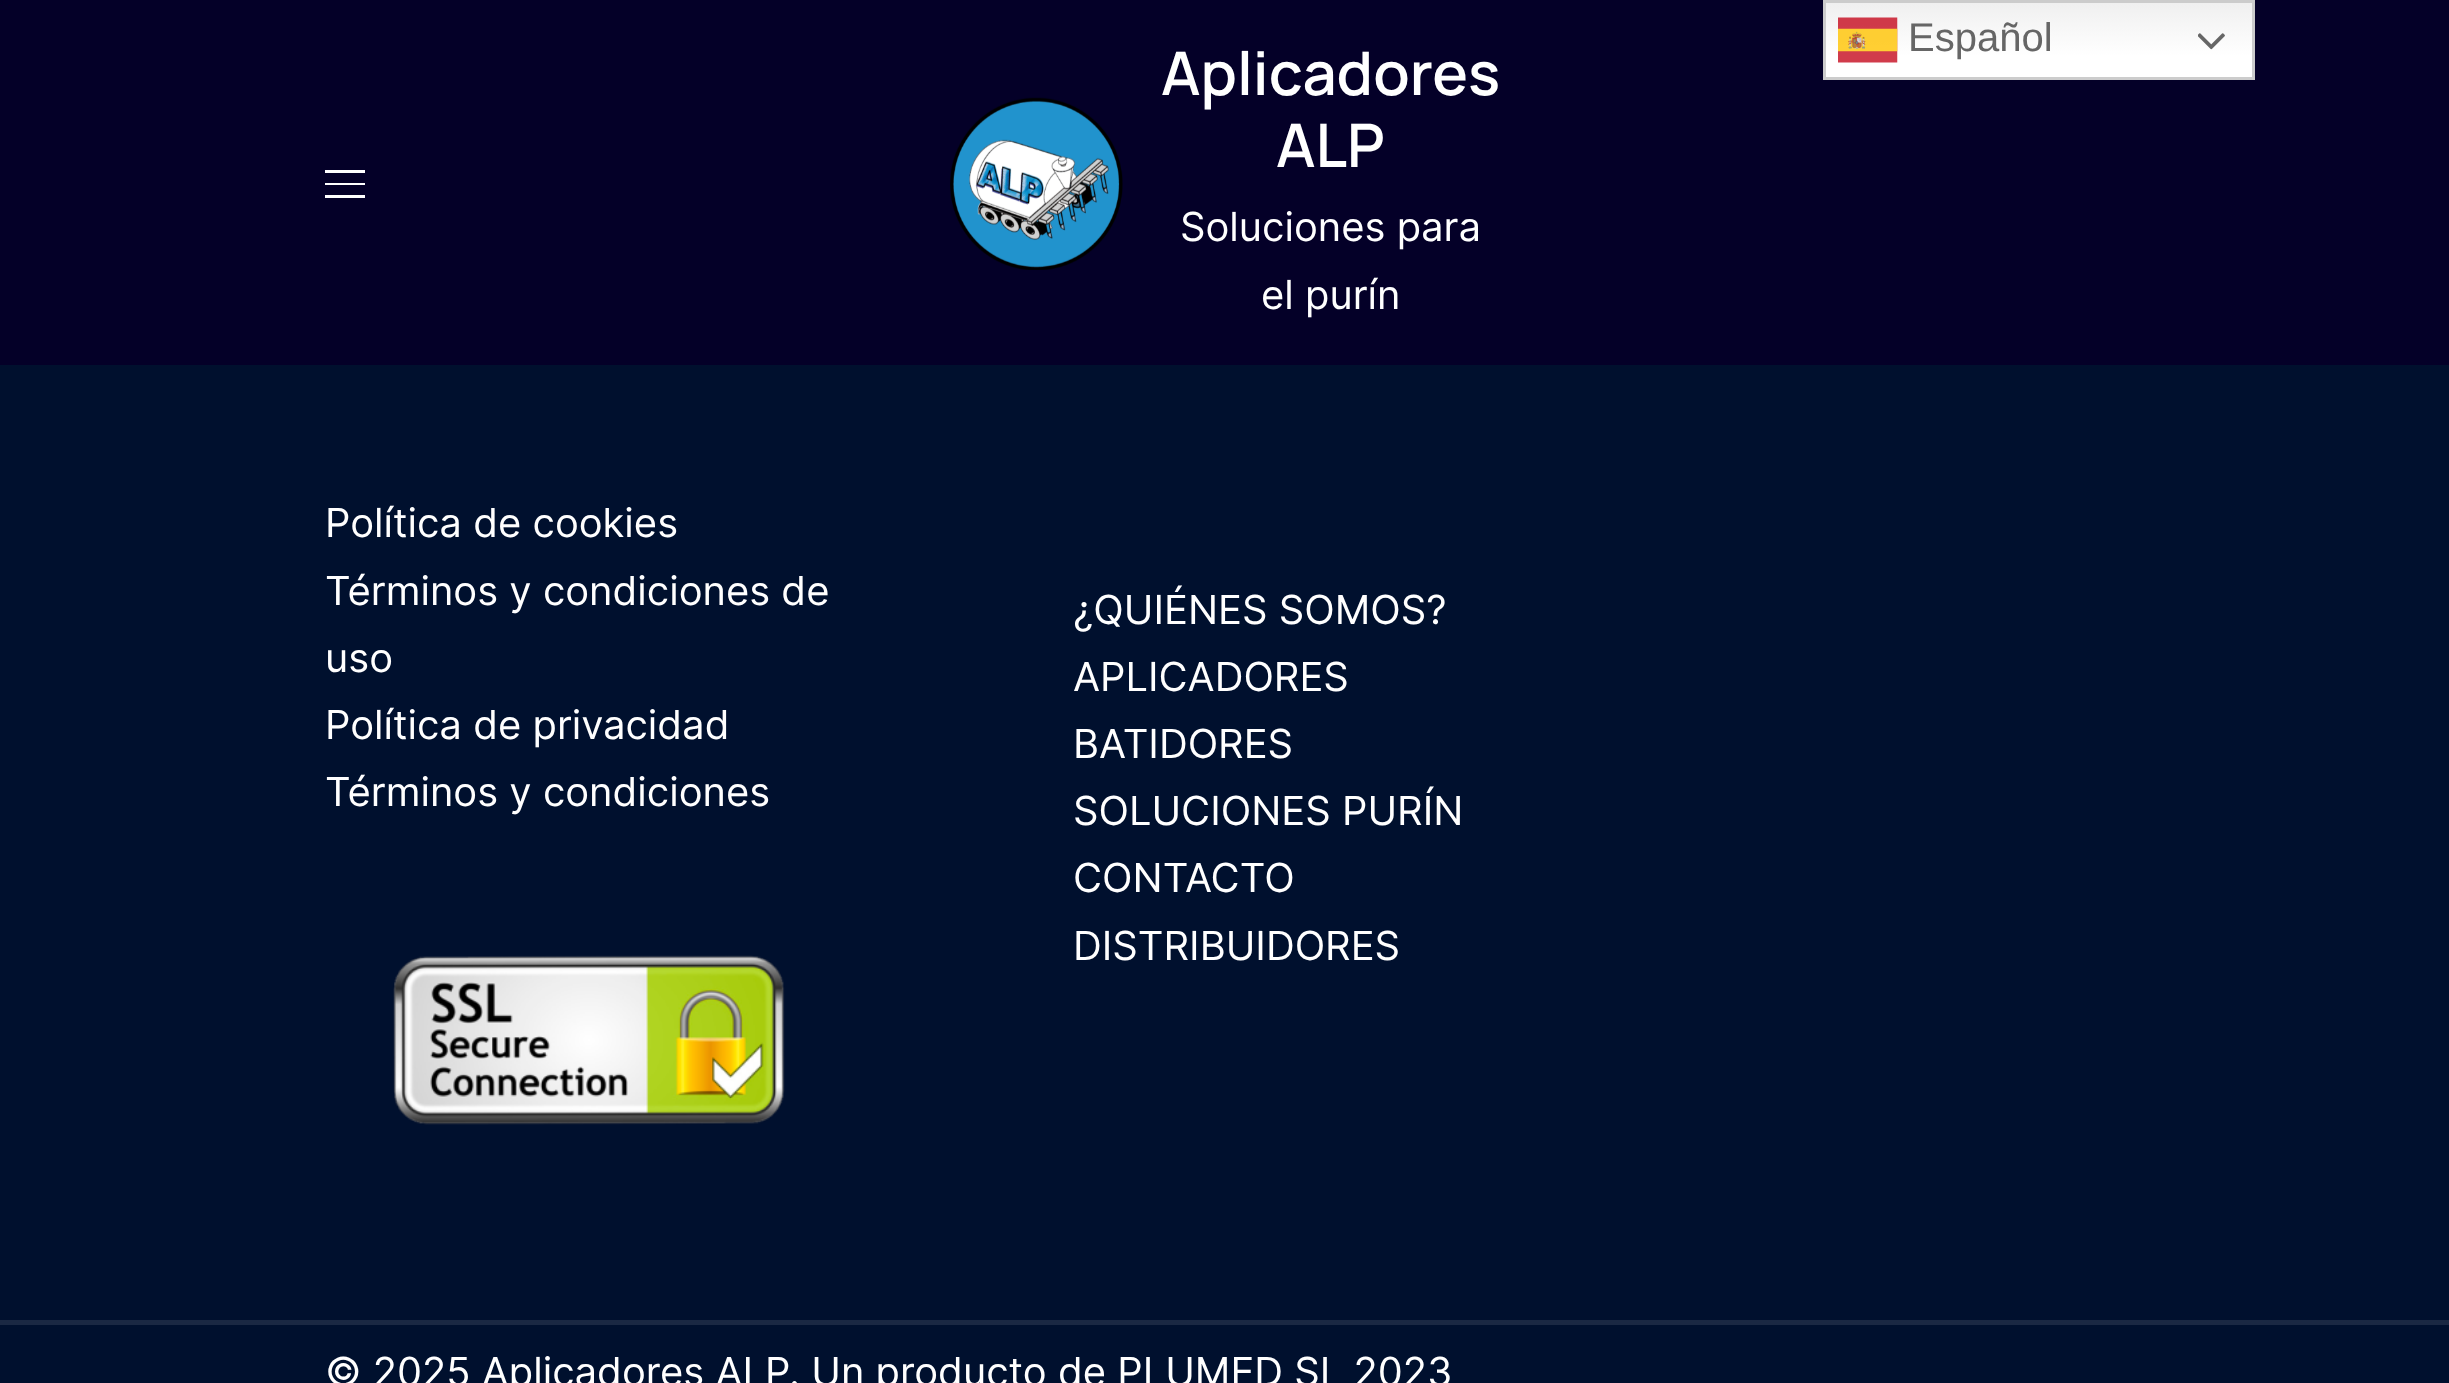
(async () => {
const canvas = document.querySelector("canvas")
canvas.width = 2449
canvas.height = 1383
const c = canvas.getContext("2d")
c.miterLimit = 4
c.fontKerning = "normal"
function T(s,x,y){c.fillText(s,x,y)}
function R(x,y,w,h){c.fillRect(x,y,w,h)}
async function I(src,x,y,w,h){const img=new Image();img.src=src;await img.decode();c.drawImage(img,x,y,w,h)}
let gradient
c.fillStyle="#00102e"
R(0,0,2449,1383)
c.fillStyle="#040028"
R(0,0,2449,365)
gradient = c.createLinearGradient(2039,0,2039,80)
gradient.addColorStop(0,"#efefef")
gradient.addColorStop(.7,"#fff")
c.fillStyle = gradient
R(1826,3,426,74)
c.strokeStyle="#ccc"
c.lineWidth=3
c.strokeRect(1824.5,1.5,429,77)
await I("1.png",1838,17,60,46)
c.font="40px Liberation Sans"
c.fillStyle="#666"
T("Español",1908,51)
await I("2.png",2198,33,27,17)
c.fillStyle="#fff"
R(325,170,40,3)
R(325,183,40,2)
R(325,195,40,3)
await I("3.png",950,97,173,173)
c.font="200 60px Manrope"
T("Aplicadores",1161,95)
T("ALP",1276,167)
c.font="40px Inter"
T("Soluciones para",1180,241)
T("el purín",1261,309)
T("Política de cookies",325,537)
T("Términos y condiciones de",325,605)
T("uso",325,672)
T("Política de privacidad",325,739)
T("Términos y condiciones",325,806)
await I("4.png",393,955,392,170)
T("¿QUIÉNES SOMOS?",1073,624)
T("APLICADORES",1073,691)
T("BATIDORES",1073,758)
T("SOLUCIONES PURÍN",1073,825)
T("CONTACTO",1073,892)
T("DISTRIBUIDORES",1073,960)
c.fillStyle="#1a2843"
R(0,1320,2449,5)
c.fillStyle="#fff"
T("© 2025 Aplicadores ALP. Un producto de PLUMED SL 2023",325,1386)
})()
